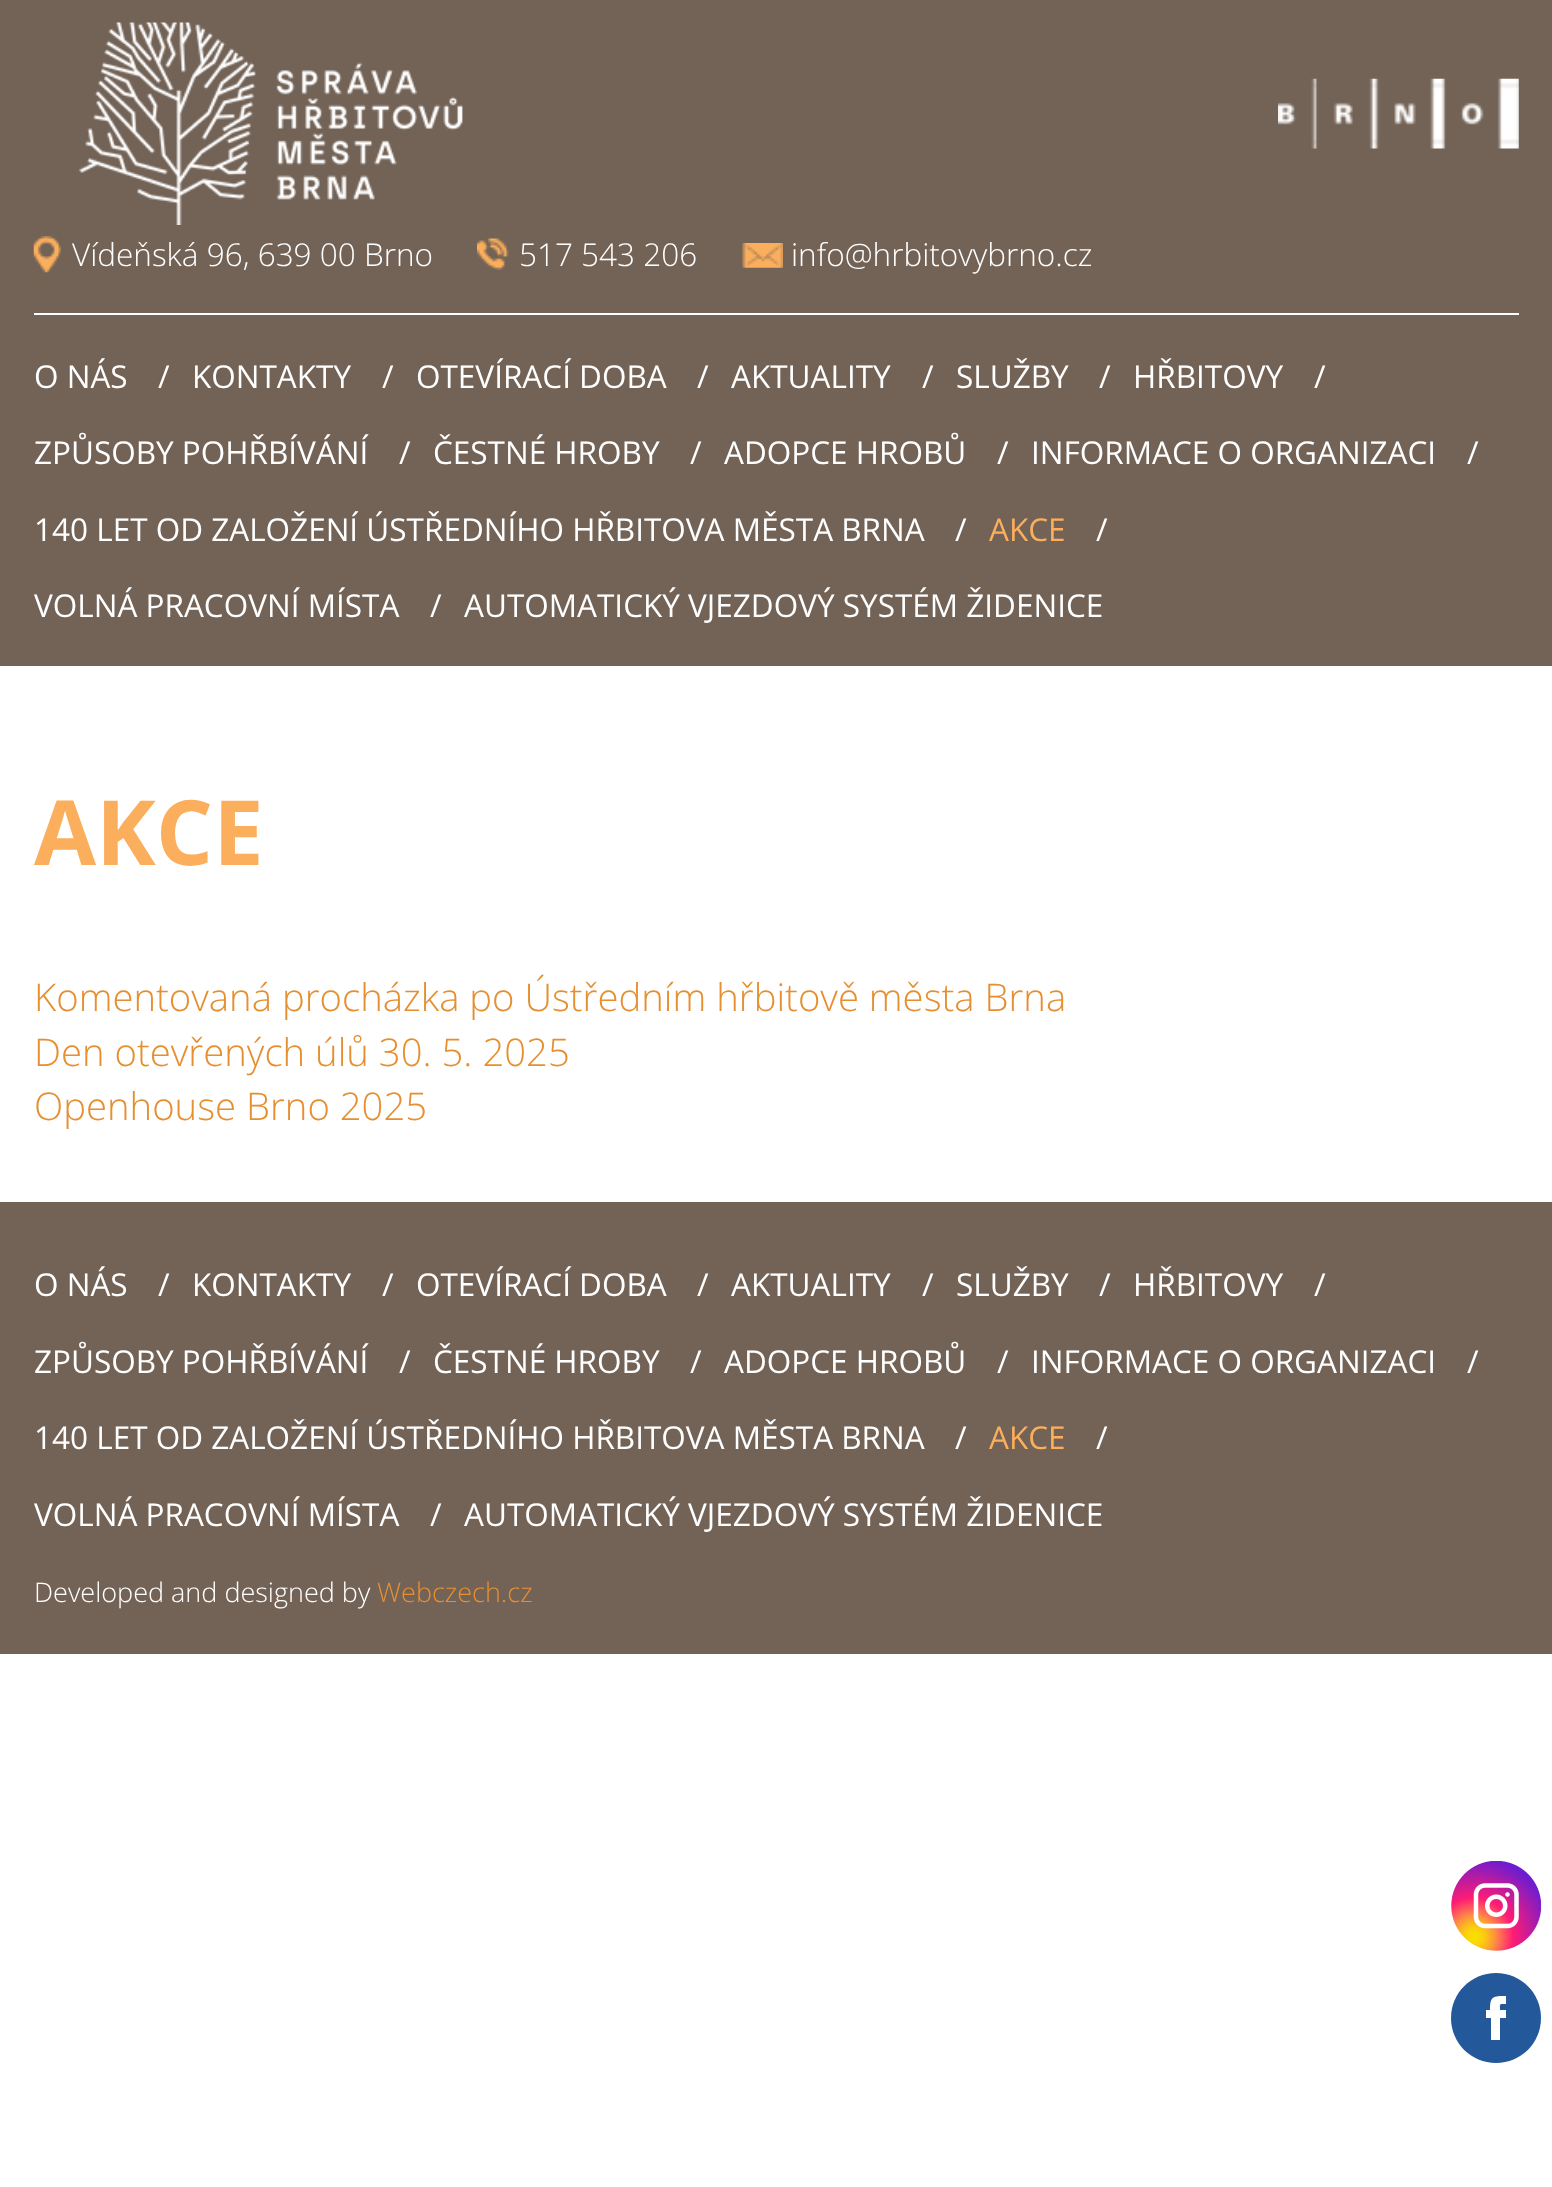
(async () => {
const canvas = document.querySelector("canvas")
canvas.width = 1552
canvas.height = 2187
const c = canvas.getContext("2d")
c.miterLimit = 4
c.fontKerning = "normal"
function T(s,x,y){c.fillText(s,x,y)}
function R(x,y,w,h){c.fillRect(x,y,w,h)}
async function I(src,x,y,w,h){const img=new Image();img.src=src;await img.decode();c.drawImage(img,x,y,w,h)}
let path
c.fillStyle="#fff"
R(0,0,1552,2187)
c.fillStyle="#736357"
R(0,0,1552,666)
await I("1.png",79,22,384,203)
await I("2.png",1278,78,241,71)
await I("3.png",33,236,28,37)
c.font="300 31.5px Open Sans"
c.fillStyle="#fff"
T("Vídeňská 96, 639 00 Brno",72,266)
await I("4.png",477,238,32,32)
T("517 543 206",519,266)
await I("5.png",742,243,41,25)
T("info@hrbitovybrno.cz",791,266)
R(34,313,1485,2)
c.font="31.5px Open Sans"
T("O NÁS",34,388)
T("/",158,388)
T("KONTAKTY",192,388)
T("/",382,388)
T("OTEVÍRACÍ DOBA",416,388)
T("/",697,388)
T("AKTUALITY",731,388)
T("/",922,388)
T("SLUŽBY",956,388)
T("/",1099,388)
T("HŘBITOVY",1133,388)
T("/",1314,388)
T("ZPŮSOBY POHŘBÍVÁNÍ",34,464)
T("/",399,464)
T("ČESTNÉ HROBY",433,464)
T("/",690,464)
T("ADOPCE HROBŮ",724,464)
T("/",997,464)
T("INFORMACE O ORGANIZACI",1031,464)
T("/",1467,464)
T("140 LET OD ZALOŽENÍ ÚSTŘEDNÍHO HŘBITOVA MĚSTA BRNA",34,541)
T("/",955,541)
c.fillStyle="#fbaf5d"
T("AKCE",989,541)
c.fillStyle="#fff"
T("/",1096,541)
T("VOLNÁ PRACOVNÍ MÍSTA",34,617)
T("/",430,617)
T("AUTOMATICKÝ VJEZDOVÝ SYSTÉM ŽIDENICE",464,617)
c.font="bold 90px Open Sans"
c.fillStyle="#fbaf5d"
T("AKCE",34,865)
c.font="300 38.25px Open Sans"
c.fillStyle="#e68f31"
T("Komentovaná procházka po Ústředním hřbitově města Brna",34,1011)
T("Den otevřených úlů 30. 5. 2025",34,1066)
T("Openhouse Brno 2025",34,1120)
c.fillStyle="#736357"
R(0,1202,1552,452)
c.font="31.5px Open Sans"
c.fillStyle="#fff"
T("O NÁS",34,1296)
T("/",158,1296)
T("KONTAKTY",192,1296)
T("/",382,1296)
T("OTEVÍRACÍ DOBA",416,1296)
T("/",697,1296)
T("AKTUALITY",731,1296)
T("/",922,1296)
T("SLUŽBY",956,1296)
T("/",1099,1296)
T("HŘBITOVY",1133,1296)
T("/",1314,1296)
T("ZPŮSOBY POHŘBÍVÁNÍ",34,1373)
T("/",399,1373)
T("ČESTNÉ HROBY",433,1373)
T("/",690,1373)
T("ADOPCE HROBŮ",724,1373)
T("/",997,1373)
T("INFORMACE O ORGANIZACI",1031,1373)
T("/",1467,1373)
T("140 LET OD ZALOŽENÍ ÚSTŘEDNÍHO HŘBITOVA MĚSTA BRNA",34,1449)
T("/",955,1449)
c.fillStyle="#fbaf5d"
T("AKCE",989,1449)
c.fillStyle="#fff"
T("/",1096,1449)
T("VOLNÁ PRACOVNÍ MÍSTA",34,1526)
T("/",430,1526)
T("AUTOMATICKÝ VJEZDOVÝ SYSTÉM ŽIDENICE",464,1526)
c.font="300 27px Open Sans"
T("Developed and designed by",34,1602)
c.fillStyle="#e68f31"
T("Webczech.cz",377,1602)
await I("6.png",1451,1861,90,90)
c.fillStyle="#23599a"
path = new Path2D("M1496 2063c25 0 45-20 45-45c0-25-20-45-45-45c-25 0-45 20-45 45c0 25 20 45 45 45z")
c.fill(path)
c.fillStyle="#fff"
path = new Path2D("M1506 2018h-6v22h-9v-22h-5v-8h4c0-14 3-14 16-14v8c-7 0-6-1-6 6h6z")
c.fill(path)
})()
